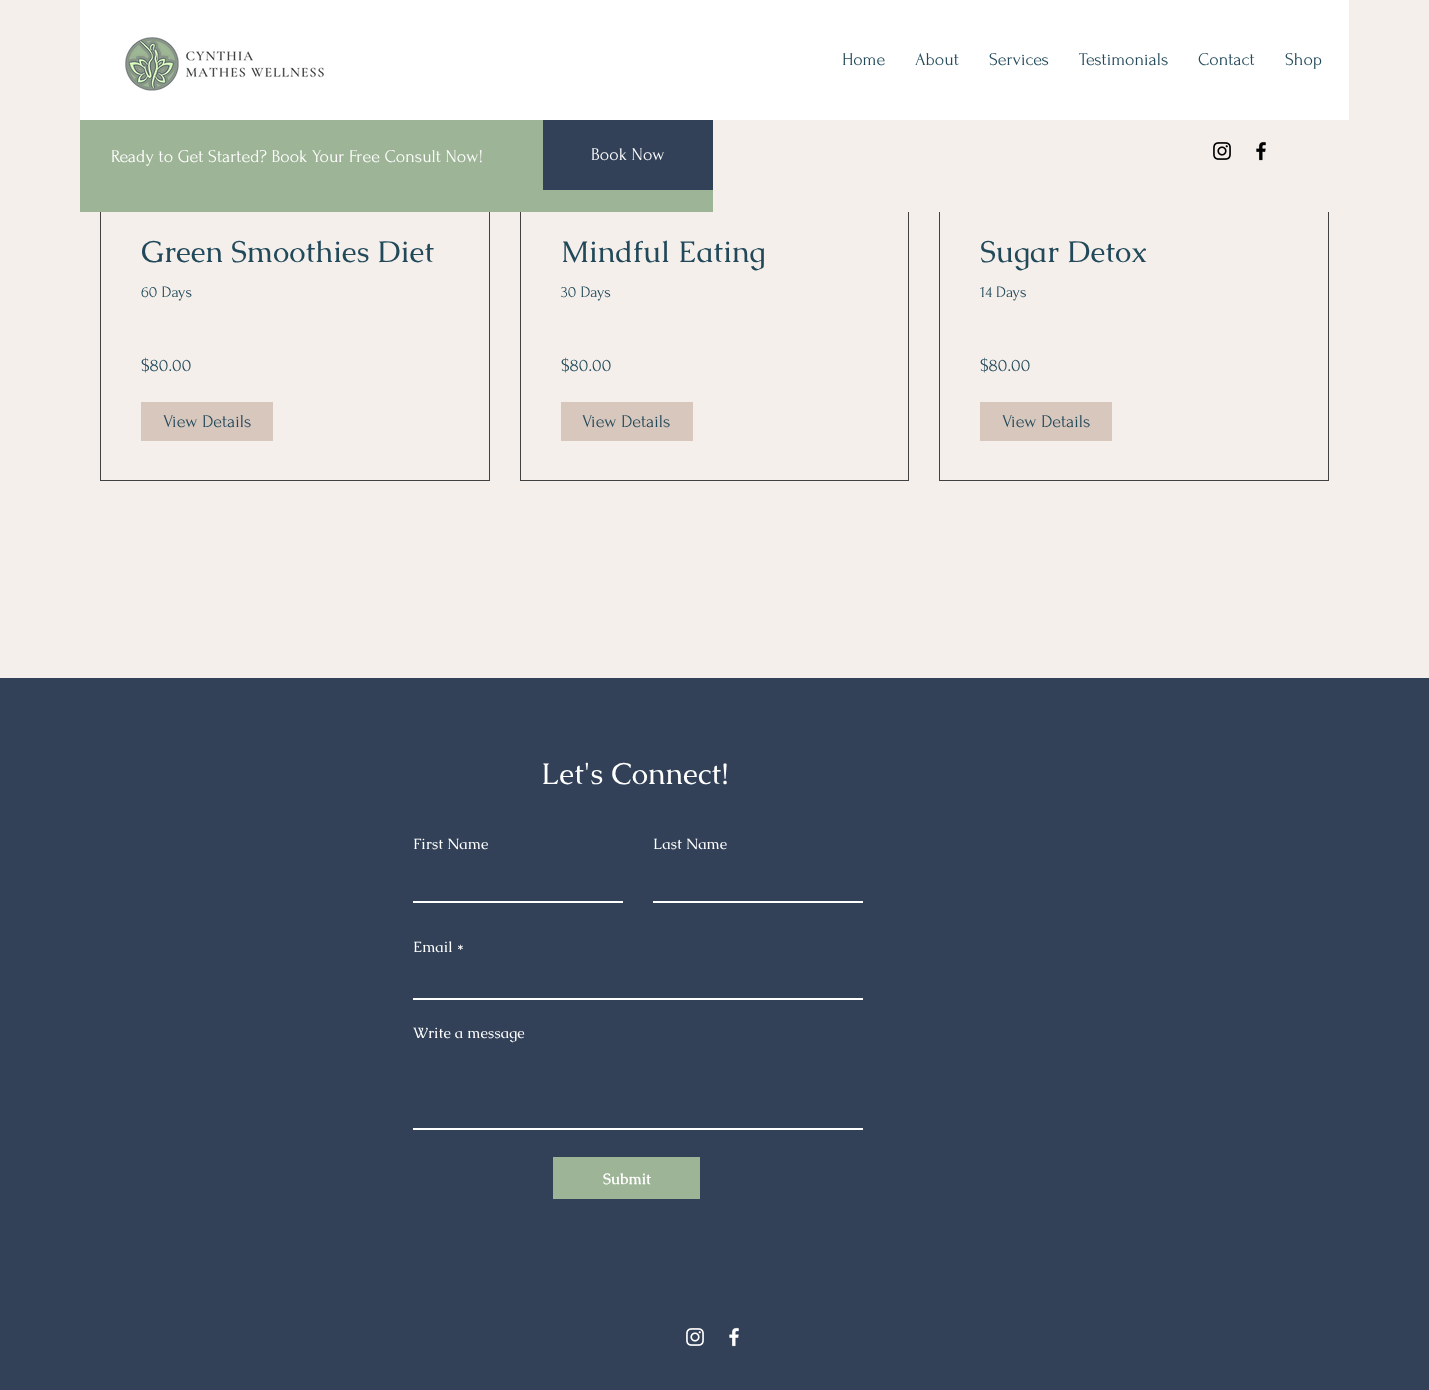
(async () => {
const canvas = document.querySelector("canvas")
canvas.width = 1429
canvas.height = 1390
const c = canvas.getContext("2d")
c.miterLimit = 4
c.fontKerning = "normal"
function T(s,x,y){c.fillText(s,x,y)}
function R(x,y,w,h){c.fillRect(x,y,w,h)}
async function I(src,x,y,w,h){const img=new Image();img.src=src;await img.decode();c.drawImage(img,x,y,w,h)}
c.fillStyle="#f4efeb"
R(0,0,1429,1390)
c.strokeStyle="#414141"
c.strokeRect(100.5,-.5,389,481)
c.strokeRect(520.5,-.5,388,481)
c.strokeRect(939.5,-.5,389,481)
c.fillStyle="#fff"
R(80,0,1269,120)
await I("1.png",125,37,199,54)
c.font="18px Forum"
c.fillStyle="#22495a"
T("Home",842,65)
T("About",915,65)
T("Services",989,65)
T("Testimonials",1079,65)
T("Contact",1198,65)
T("Shop",1285,65)
c.fillStyle="#9db496"
R(80,120,633,92)
c.fillStyle="#fff"
T("Ready to Get Started? Book Your Free Consult Now!",111,162)
c.fillStyle="#324158"
R(543,120,170,70)
c.fillStyle="#fff"
T("Book Now",591,160)
c.fillStyle="#f4efeb"
R(908,120,1,92)
R(939,120,390,92)
await I("2.png",1213,142,18,18)
await I("3.png",1256,141,10,20)
c.font="30px Caudex"
c.fillStyle="#22495a"
T("Green Smoothies Diet",141,262)
c.font="16px Forum"
T("60 Days",141,297)
c.font="18px Forum"
T("$80.00",141,371)
c.fillStyle="#d8c7bd"
R(141,402,132,39)
c.fillStyle="#22495a"
T("View Details",163,427)
c.font="30px Caudex"
T("Mindful Eating",561,262)
c.font="16px Forum"
T("30 Days",561,297)
c.font="18px Forum"
T("$80.00",561,371)
c.fillStyle="#d8c7bd"
R(561,402,132,39)
c.fillStyle="#22495a"
T("View Details",582,427)
c.font="30px Caudex"
T("Sugar Detox",980,262)
c.font="16px Forum"
T("14 Days",980,297)
c.font="18px Forum"
T("$80.00",980,371)
c.fillStyle="#d8c7bd"
R(980,402,132,39)
c.fillStyle="#22495a"
T("View Details",1002,427)
c.fillStyle="#324158"
R(0,678,1429,712)
c.font="30px Caudex"
c.fillStyle="#fff"
T("Let's Connect!",541,784)
c.font="15px Caudex"
T("First Name",413,849)
R(413,901,210,2)
T("Last Name",653,849)
R(653,901,210,2)
T("Email *",413,952)
R(413,998,450,2)
T("Write a message",413,1038)
R(413,1128,450,2)
c.fillStyle="#9db496"
R(553,1157,147,42)
c.font="bold 15px Caudex"
c.fillStyle="#fff"
T("Submit",603,1184)
await I("4.png",686,1328,18,18)
await I("5.png",729,1327,10,20)
})()
